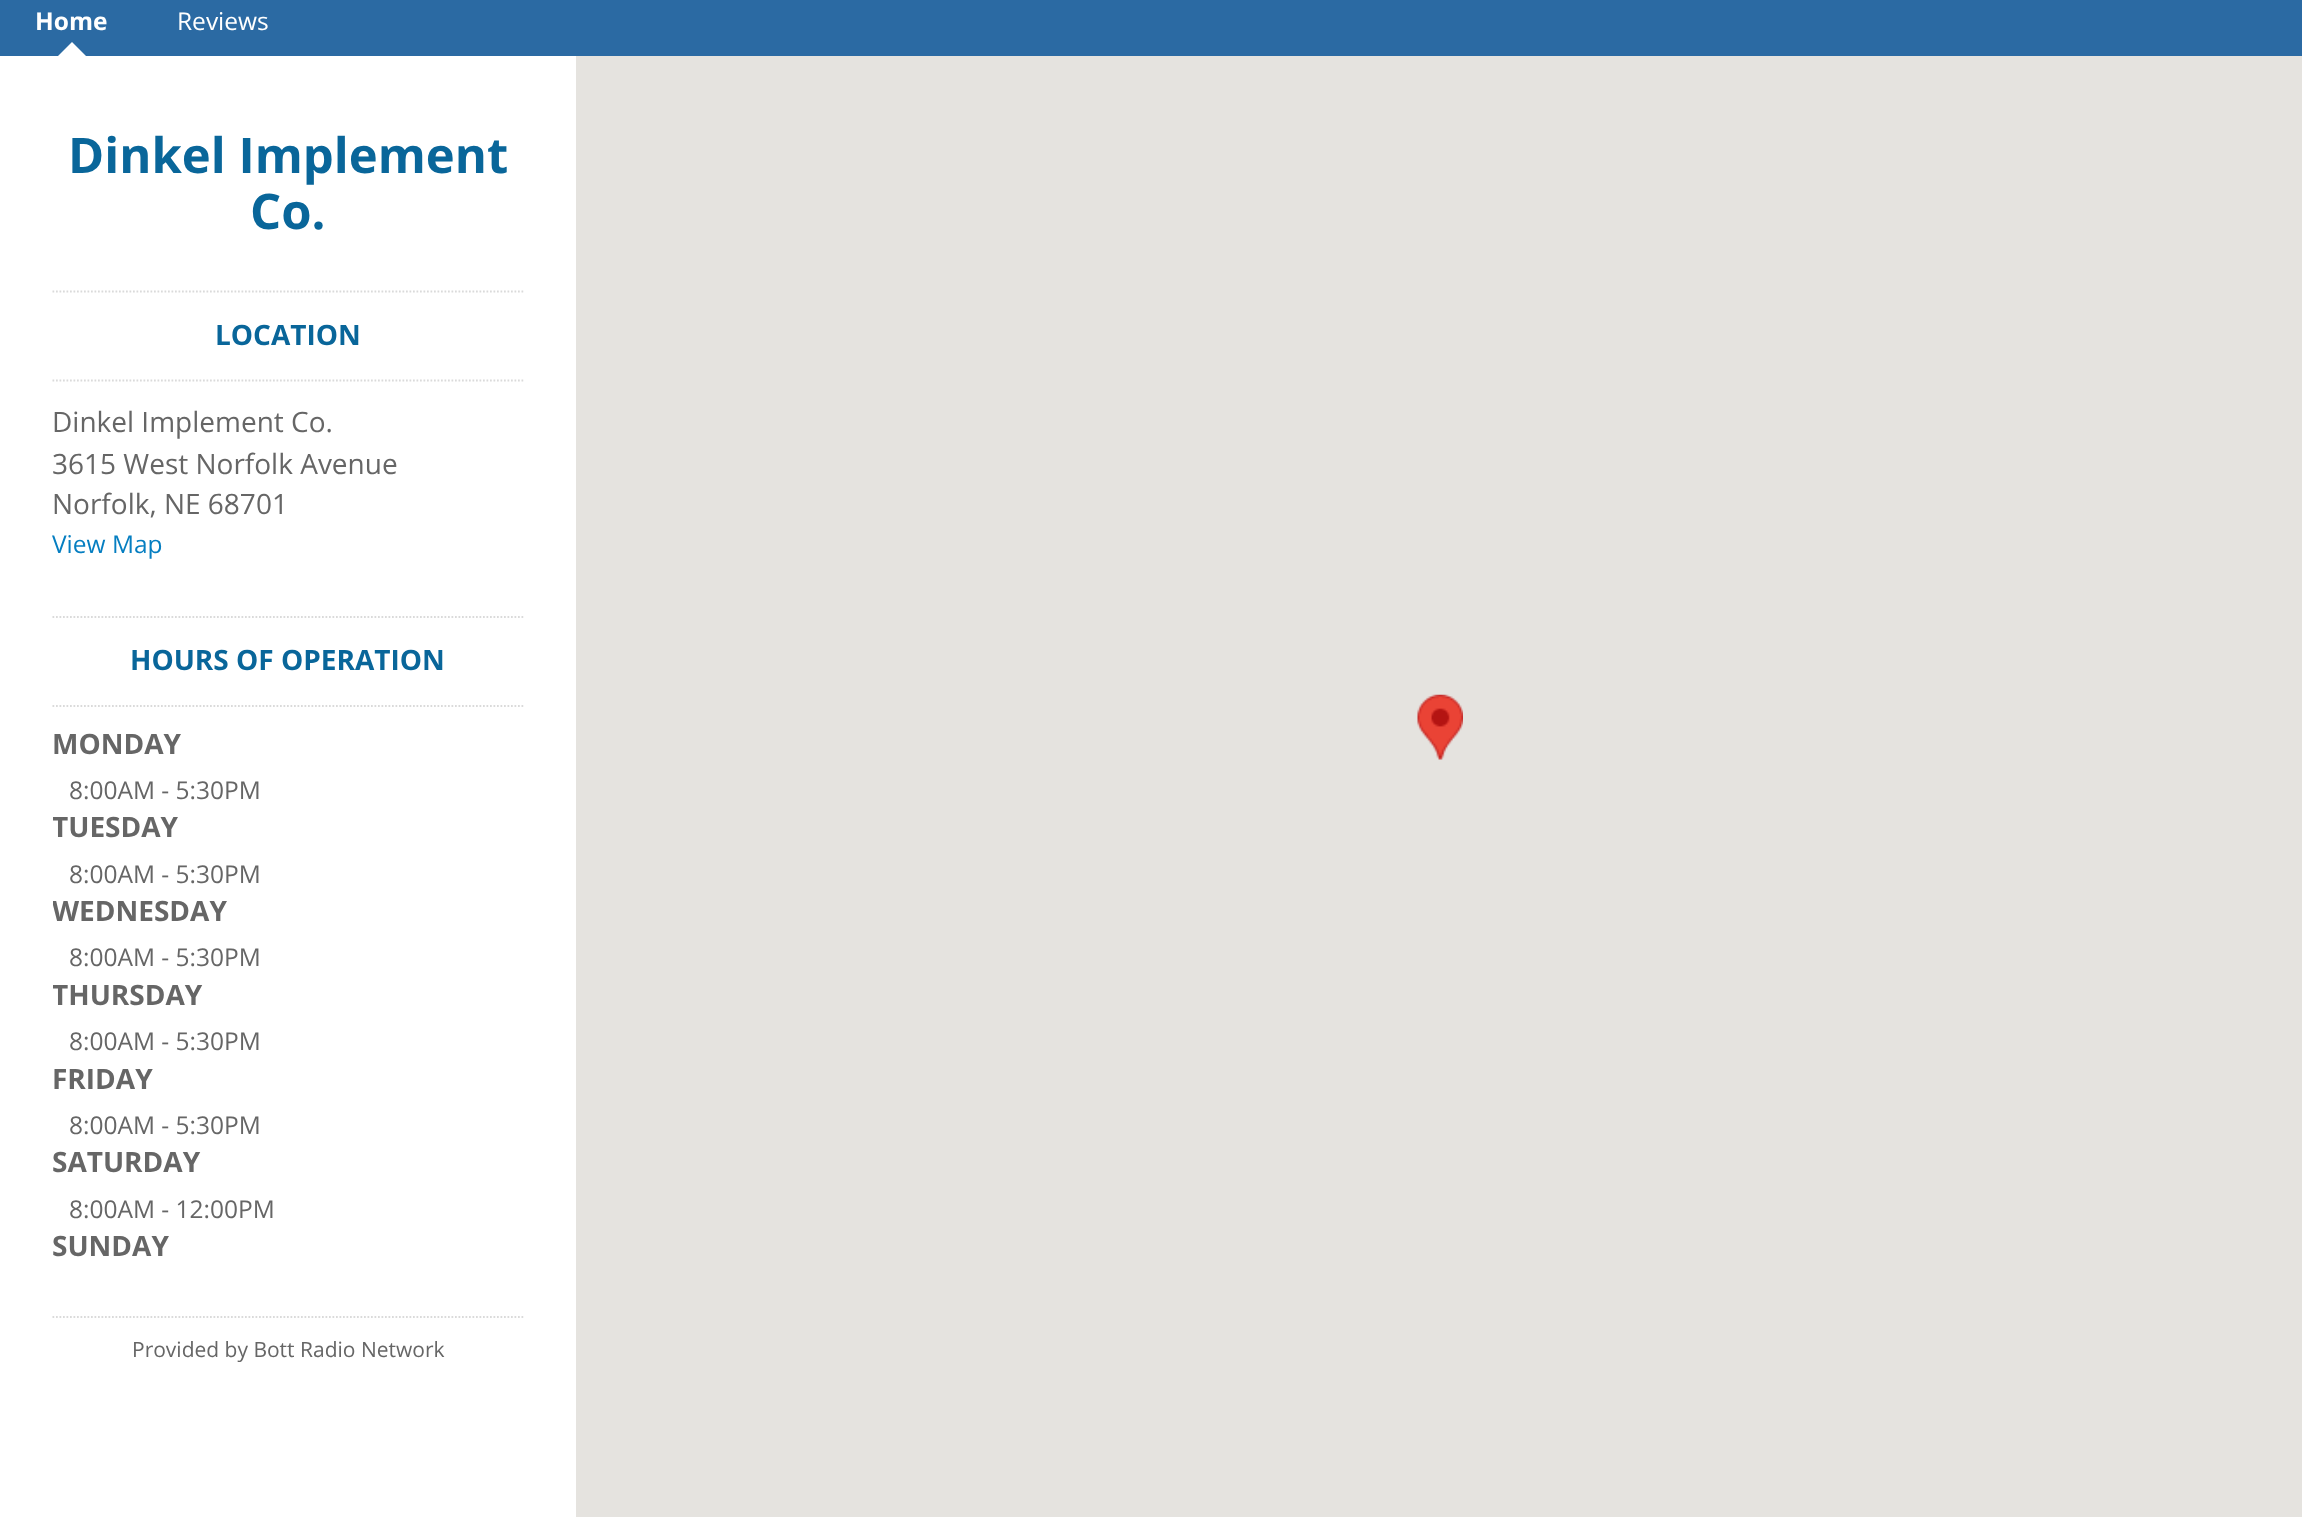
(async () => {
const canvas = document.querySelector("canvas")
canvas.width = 2302
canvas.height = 1517
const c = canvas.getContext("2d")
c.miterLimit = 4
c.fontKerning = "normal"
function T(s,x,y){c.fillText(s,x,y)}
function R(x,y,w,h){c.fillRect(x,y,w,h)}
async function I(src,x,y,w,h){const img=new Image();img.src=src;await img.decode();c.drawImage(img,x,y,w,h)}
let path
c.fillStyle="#fff"
R(0,0,2302,1517)
c.fillStyle="#2b6aa3"
R(0,0,2302,56)
c.font="bold 24.5px Open Sans"
c.fillStyle="#fff"
T("Home",35,30)
path = new Path2D("M86 56h-28l14-14z")
c.fill(path)
c.font="24.5px Open Sans"
T("Reviews",177,30)
c.font="bold 49px Open Sans"
c.fillStyle="#09669a"
T("Dinkel Implement",68,173)
T("Co.",250,229)
path = new Path2D("M52.5 291.5h472.5")
c.strokeStyle="#dadada"
c.lineWidth=1.8
c.setLineDash([1.75,1.75])
c.stroke(path)
path = new Path2D("M52.5 380.5h472.5")
c.stroke(path)
c.font="bold 28px Open Sans"
T("LOCATION",215,345)
c.font="28px Open Sans"
c.fillStyle="#666"
T("Dinkel Implement Co.",52,432)
T("3615 West Norfolk Avenue",52,474)
T("Norfolk, NE 68701",52,514)
c.font="24.5px Open Sans"
c.fillStyle="#057ec1"
T("View Map",52,553)
path = new Path2D("M52.5 617h472.5")
c.stroke(path)
path = new Path2D("M52.5 706h472.5")
c.stroke(path)
c.font="bold 28px Open Sans"
c.fillStyle="#09669a"
T("HOURS OF OPERATION",130,670)
c.fillStyle="#666"
T("MONDAY",52,754)
c.font="24.5px Open Sans"
T("8:00AM - 5:30PM",69,799)
c.save()
c.beginPath()
c.rect(53,616,472,658)
c.clip()
c.font="bold 28px Open Sans"
T("TUESDAY",52,837)
c.restore()
T("8:00AM - 5:30PM",69,883)
c.save()
c.beginPath()
c.rect(53,616,472,658)
c.clip()
c.font="bold 28px Open Sans"
T("WEDNESDAY",52,921)
c.restore()
T("8:00AM - 5:30PM",69,966)
c.save()
c.beginPath()
c.rect(53,616,472,658)
c.clip()
c.font="bold 28px Open Sans"
T("THURSDAY",52,1005)
c.restore()
T("8:00AM - 5:30PM",69,1050)
c.font="bold 28px Open Sans"
T("FRIDAY",52,1089)
c.font="24.5px Open Sans"
T("8:00AM - 5:30PM",69,1134)
c.save()
c.beginPath()
c.rect(53,616,472,658)
c.clip()
c.font="bold 28px Open Sans"
T("SATURDAY",52,1172)
c.restore()
T("8:00AM - 12:00PM",69,1218)
c.save()
c.beginPath()
c.rect(53,616,472,658)
c.clip()
c.font="bold 28px Open Sans"
T("SUNDAY",52,1256)
c.restore()
path = new Path2D("M52.5 1317h472.5")
c.stroke(path)
c.font="21px Open Sans"
T("Provided by Bott Radio Network",132,1357)
c.fillStyle="#e5e3df"
R(576,56,1726,1461)
await I("1.png",1417,694,46,66)
})()
